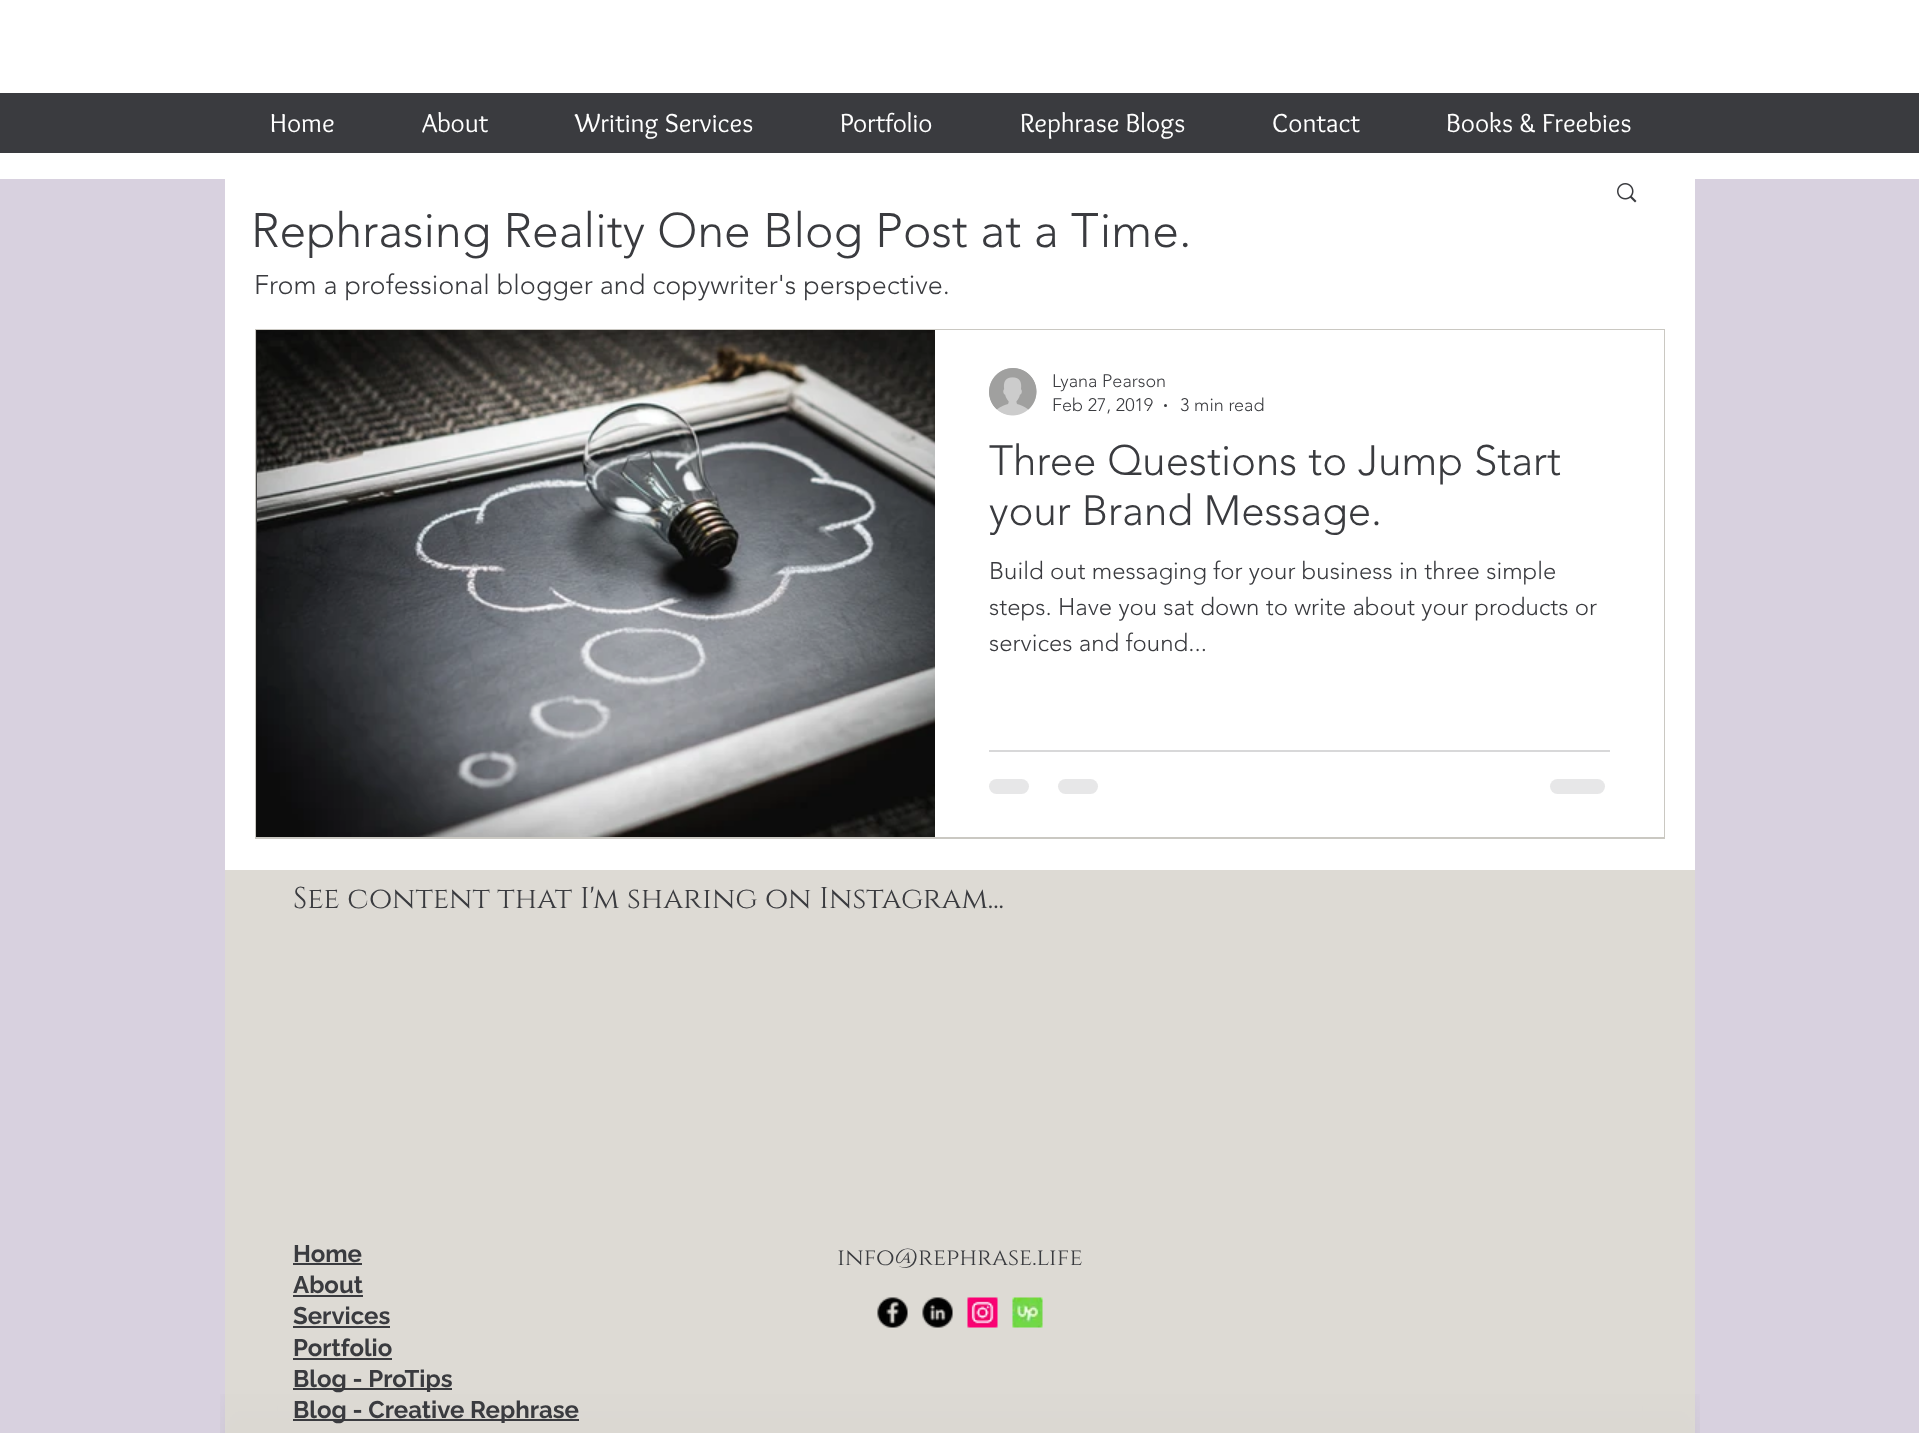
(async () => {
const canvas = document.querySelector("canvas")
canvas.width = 1919
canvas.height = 1433
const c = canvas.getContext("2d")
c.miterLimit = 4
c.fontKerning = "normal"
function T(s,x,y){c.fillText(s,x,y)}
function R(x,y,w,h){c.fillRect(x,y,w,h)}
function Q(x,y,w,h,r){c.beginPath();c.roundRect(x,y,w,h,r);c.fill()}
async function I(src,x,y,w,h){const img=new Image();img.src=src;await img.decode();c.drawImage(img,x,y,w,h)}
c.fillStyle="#d8d1df"
R(0,0,1919,1433)
c.fillStyle="#fff"
R(0,0,1919,179)
c.fillStyle="#3a3b3f"
R(0,93,1919,60)
c.font="27px Overlock"
c.fillStyle="#fff"
T("Home",270,132)
T("About",422,132)
T("Writing Services",575,132)
T("Portfolio",840,132)
T("Rephrase Blogs",1020,132)
T("Contact",1272,132)
T("Books & Freebies",1446,132)
R(225,179,1470,691)
c.font="300 48px 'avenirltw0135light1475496'"
c.fillStyle="#3a3b3f"
T("Rephrasing Reality One Blog Post at a Time.",251,247)
c.font="300 27px 'avenirltw0135light1475496'"
T("From a professional blogger and copywriter's perspective.",254,294)
await I("1.png",1617,183,20,20)
c.strokeStyle="#cac8c2"
c.lineWidth=2
c.strokeRect(256,330,1408,508)
await I("2.png",256,330,1,507)
await I("3.png",257,330,678,507)
c.fillStyle="#fff"
R(935,330,729,507)
await I("4.png",989,368,48,48)
c.font="300 18px 'avenirltw0135light1475496'"
c.fillStyle="#3a3b3f"
T("Lyana Pearson",1052,387)
T("Feb 27, 2019",1052,411)
c.beginPath()
c.arc(1165.5,405.5,1.5,0,7)
c.fill()
T("3 min read",1180,411)
c.font="300 42px 'avenirltw0135light1475496'"
T("Three Questions to Jump Start",989,475)
T("your Brand Message.",989,525)
c.font="300 24px 'avenirltw0135light1475496'"
T("Build out messaging for your business in three simple",989,579)
T("steps. Have you sat down to write about your products or",989,615)
T("services and found...",989,651)
c.fillStyle="#d8d8d9"
R(989,750,621,2)
c.fillStyle="#e7e7e8"
Q(989,779,40,15,7.5)
Q(1058,779,40,15,7.5)
Q(1550,779,55,15,7.5)
await I("5.png",220,1394,58,39)
await I("6.png",277,1394,1366,39)
await I("7.png",1642,1394,58,39)
c.fillStyle="#ffffff99"
R(225,870,1470,563)
c.fillStyle="#d1cdc099"
R(225,870,1470,563)
c.font="30px Cinzel"
c.fillStyle="#3a3b3f"
T("See content that I'm sharing on Instagram...",293,908)
c.font="bold 24px Raleway"
T("Home",293,1262)
R(293,1263,69,2)
T("About",293,1293)
R(293,1295,70,2)
T("Services",293,1324)
R(293,1326,97,2)
T("Portfolio",293,1356)
R(293,1358,99,2)
R(293,1388,159,2)
T("Blog - ProTips",293,1387)
R(293,1419,286,2)
T("Blog - Creative Rephrase",293,1418)
c.font="24px Cinzel"
T("info@rephrase.life",837,1265)
await I("8.png",877,1297,31,31)
await I("9.png",922,1297,31,31)
await I("10.png",967,1297,31,31)
await I("11.png",1012,1297,31,31)
})()
